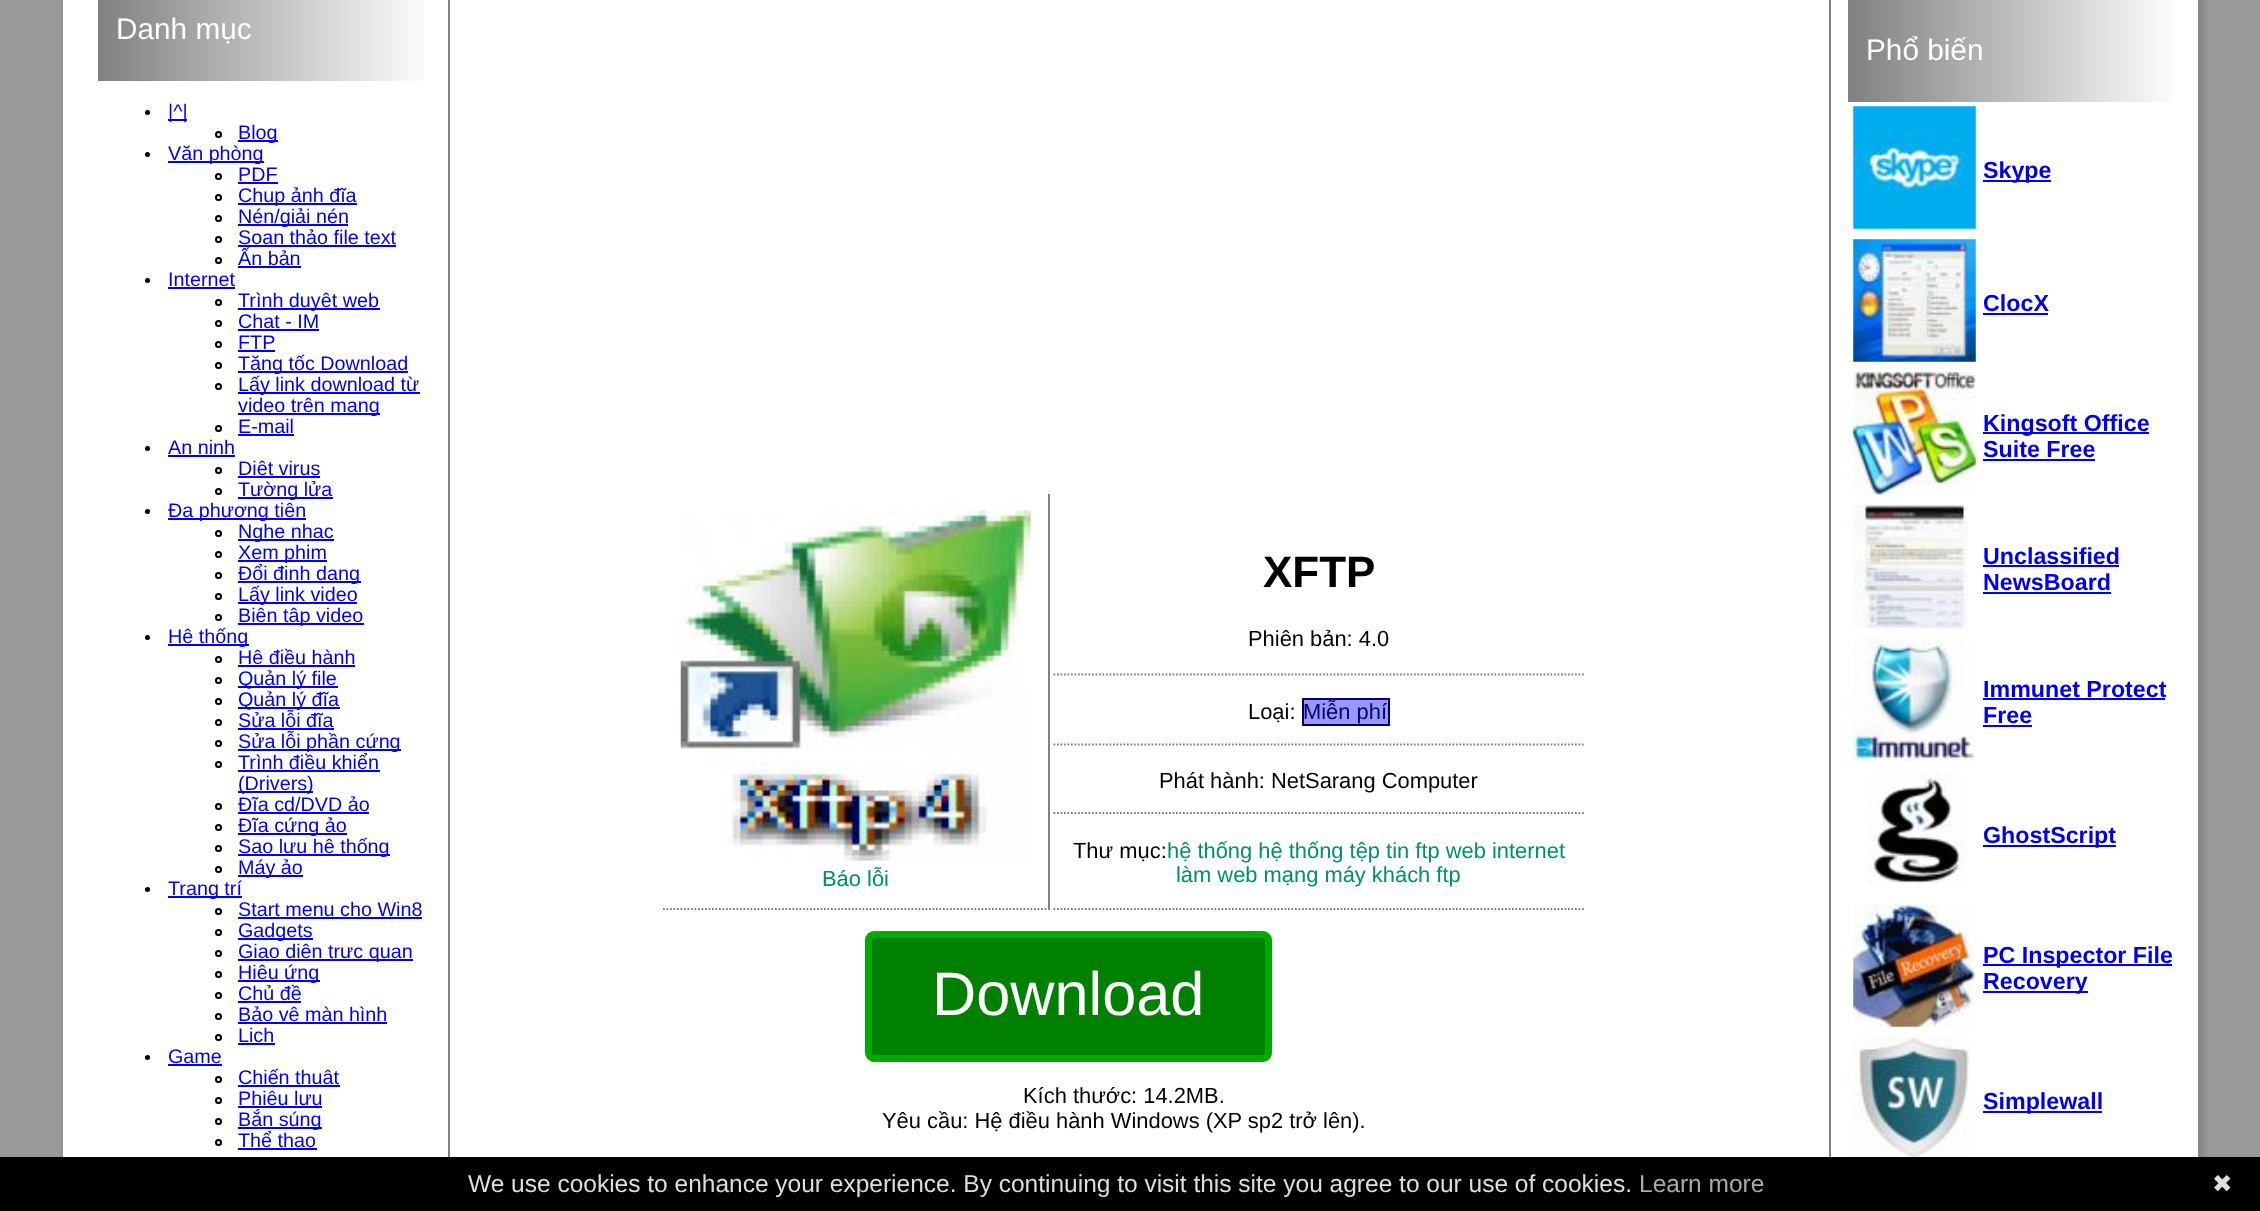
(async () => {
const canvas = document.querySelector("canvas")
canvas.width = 2260
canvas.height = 1211
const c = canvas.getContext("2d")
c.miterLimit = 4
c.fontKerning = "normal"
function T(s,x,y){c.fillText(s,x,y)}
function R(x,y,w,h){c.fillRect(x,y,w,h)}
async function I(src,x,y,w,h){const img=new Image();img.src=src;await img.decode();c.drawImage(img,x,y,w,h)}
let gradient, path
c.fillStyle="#999"
R(0,0,2260,1211)
c.fillStyle="#888"
c.filter="blur(2px)"
c.beginPath()
c.rect(63,-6,2142,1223)
c.fill()
c.filter="none"
c.fillStyle="#fff"
R(63,0,2135,1157)
c.fillStyle="#808080"
R(448,0,2,1157)
gradient = c.createLinearGradient(98,30,431,30)
gradient.addColorStop(0,"#808080")
gradient.addColorStop(1,"#fff")
c.fillStyle = gradient
R(98,0,326,81)
c.font="29.75px Liberation Sans"
c.fillStyle="#fff"
T("Danh mục",116,39)
c.fillStyle="#000"
c.beginPath()
c.arc(147.5,112.5,2.5,0,7)
c.fill()
c.fillStyle="#00e"
R(168,119,19,2)
c.font="19.75px Liberation Sans"
T("|^|",168,118)
c.beginPath()
c.arc(218.5,134.5,2.5,0,7)
c.strokeStyle="#000"
c.lineWidth=2
c.stroke()
R(238,140,40,2)
T("Blog",238,139)
c.fillStyle="#000"
c.beginPath()
c.arc(147.5,154.5,2.5,0,7)
c.fill()
c.fillStyle="#00e"
R(168,161,96,2)
T("Văn phòng",168,160)
c.beginPath()
c.arc(218.5,176.5,2.5,0,7)
c.stroke()
T("PDF",238,181)
R(238,182,40,2)
c.beginPath()
c.arc(218.5,197.5,2.5,0,7)
c.stroke()
R(238,203,119,2)
T("Chụp ảnh đĩa",238,202)
c.beginPath()
c.arc(218.5,218.5,2.5,0,7)
c.stroke()
R(238,224,110,2)
T("Nén/giải nén",238,223)
c.beginPath()
c.arc(218.5,239.5,2.5,0,7)
c.stroke()
R(238,245,158,2)
T("Soạn thảo file text",238,244)
c.beginPath()
c.arc(218.5,260.5,2.5,0,7)
c.stroke()
T("Ấn bản",238,265)
R(238,266,63,2)
c.fillStyle="#000"
c.beginPath()
c.arc(147.5,280.5,2.5,0,7)
c.fill()
c.fillStyle="#00e"
T("Internet",168,286)
R(168,287,67,2)
c.beginPath()
c.arc(218.5,302.5,2.5,0,7)
c.stroke()
R(238,308,142,2)
T("Trình duyệt web",238,307)
c.beginPath()
c.arc(218.5,323.5,2.5,0,7)
c.stroke()
T("Chat - IM",238,328)
R(238,329,81,2)
c.beginPath()
c.arc(218.5,344.5,2.5,0,7)
c.stroke()
T("FTP",238,349)
R(238,350,37,2)
c.beginPath()
c.arc(218.5,365.5,2.5,0,7)
c.stroke()
R(238,371,170,2)
T("Tăng tốc Download",238,370)
c.beginPath()
c.arc(218.5,386.5,2.5,0,7)
c.stroke()
R(238,392,182,2)
T("Lấy link download từ",238,391)
R(238,413,142,2)
T("video trên mạng",238,412)
c.beginPath()
c.arc(218.5,428.5,2.5,0,7)
c.stroke()
T("E-mail",238,433)
R(238,434,56,2)
c.fillStyle="#000"
c.beginPath()
c.arc(147.5,448.5,2.5,0,7)
c.fill()
c.fillStyle="#00e"
T("An ninh",168,454)
R(168,455,67,2)
c.beginPath()
c.arc(218.5,470.5,2.5,0,7)
c.stroke()
R(238,476,82,2)
T("Diệt virus",238,475)
c.beginPath()
c.arc(218.5,491.5,2.5,0,7)
c.stroke()
R(238,497,95,2)
T("Tường lửa",238,496)
c.fillStyle="#000"
c.beginPath()
c.arc(147.5,511.5,2.5,0,7)
c.fill()
c.fillStyle="#00e"
R(168,518,138,2)
T("Đa phương tiện",168,517)
c.beginPath()
c.arc(218.5,533.5,2.5,0,7)
c.stroke()
R(238,539,96,2)
T("Nghe nhạc",238,538)
c.beginPath()
c.arc(218.5,554.5,2.5,0,7)
c.stroke()
R(238,560,89,2)
T("Xem phim",238,559)
c.beginPath()
c.arc(218.5,575.5,2.5,0,7)
c.stroke()
R(238,581,123,2)
T("Đổi định dạng",238,580)
c.beginPath()
c.arc(218.5,596.5,2.5,0,7)
c.stroke()
R(238,602,119,2)
T("Lấy link video",238,601)
c.beginPath()
c.arc(218.5,617.5,2.5,0,7)
c.stroke()
R(238,623,126,2)
T("Biên tập video",238,622)
c.fillStyle="#000"
c.beginPath()
c.arc(147.5,637.5,2.5,0,7)
c.fill()
c.fillStyle="#00e"
R(168,644,81,2)
T("Hệ thống",168,643)
c.beginPath()
c.arc(218.5,659.5,2.5,0,7)
c.stroke()
R(238,665,117,2)
T("Hệ điều hành",238,664)
c.beginPath()
c.arc(218.5,680.5,2.5,0,7)
c.stroke()
R(238,686,100,2)
T("Quản lý file",238,685)
c.beginPath()
c.arc(218.5,701.5,2.5,0,7)
c.stroke()
R(238,707,102,2)
T("Quản lý đĩa",238,706)
c.beginPath()
c.arc(218.5,722.5,2.5,0,7)
c.stroke()
T("Sửa lỗi đĩa",238,727)
R(238,728,96,2)
c.beginPath()
c.arc(218.5,743.5,2.5,0,7)
c.stroke()
R(238,749,163,2)
T("Sửa lỗi phần cứng",238,748)
c.beginPath()
c.arc(218.5,764.5,2.5,0,7)
c.stroke()
T("Trình điều khiển",238,769)
R(238,770,142,2)
R(238,791,75,2)
T("(Drivers)",238,790)
c.beginPath()
c.arc(218.5,806.5,2.5,0,7)
c.stroke()
T("Đĩa cd/DVD ảo",238,811)
R(238,812,131,2)
c.beginPath()
c.arc(218.5,827.5,2.5,0,7)
c.stroke()
R(238,833,109,2)
T("Đĩa cứng ảo",238,832)
c.beginPath()
c.arc(218.5,848.5,2.5,0,7)
c.stroke()
R(238,854,152,2)
T("Sao lưu hệ thống",238,853)
c.beginPath()
c.arc(218.5,869.5,2.5,0,7)
c.stroke()
R(238,875,65,2)
T("Máy ảo",238,874)
c.fillStyle="#000"
c.beginPath()
c.arc(147.5,889.5,2.5,0,7)
c.fill()
c.fillStyle="#00e"
R(168,896,74,2)
T("Trang trí",168,895)
c.beginPath()
c.arc(218.5,911.5,2.5,0,7)
c.stroke()
T("Start menu cho Win8",238,916)
R(238,917,184,2)
c.beginPath()
c.arc(218.5,932.5,2.5,0,7)
c.stroke()
R(238,938,75,2)
T("Gadgets",238,937)
c.beginPath()
c.arc(218.5,953.5,2.5,0,7)
c.stroke()
R(238,959,175,2)
T("Giao diện trực quan",238,958)
c.beginPath()
c.arc(218.5,974.5,2.5,0,7)
c.stroke()
R(238,980,82,2)
T("Hiệu ứng",238,979)
c.beginPath()
c.arc(218.5,995.5,2.5,0,7)
c.stroke()
T("Chủ đề",238,1000)
R(238,1001,63,2)
c.beginPath()
c.arc(218.5,1016.5,2.5,0,7)
c.stroke()
R(238,1022,149,2)
T("Bảo vệ màn hình",238,1021)
c.beginPath()
c.arc(218.5,1037.5,2.5,0,7)
c.stroke()
R(238,1043,37,2)
T("Lịch",238,1042)
c.fillStyle="#000"
c.beginPath()
c.arc(147.5,1057.5,2.5,0,7)
c.fill()
c.fillStyle="#00e"
T("Game",168,1063)
R(168,1064,54,2)
c.beginPath()
c.arc(218.5,1079.5,2.5,0,7)
c.stroke()
R(238,1085,102,2)
T("Chiến thuật",238,1084)
c.beginPath()
c.arc(218.5,1100.5,2.5,0,7)
c.stroke()
T("Phiêu lưu",238,1105)
R(238,1106,84,2)
c.beginPath()
c.arc(218.5,1121.5,2.5,0,7)
c.stroke()
R(238,1127,84,2)
T("Bắn súng",238,1126)
c.beginPath()
c.arc(218.5,1142.5,2.5,0,7)
c.stroke()
T("Thể thao",238,1147)
R(238,1148,79,2)
path = new Path2D("M1053.5 674.5h530.5")
c.strokeStyle="#808080"
c.lineWidth=1.8
c.setLineDash([1.75,1.75])
c.stroke(path)
c.font="bold 44px Liberation Sans"
c.fillStyle="#000"
T("XFTP",1263,587)
c.font="21.9px Liberation Sans"
T("Phiên bản: 4.0",1248,646)
c.fillStyle="#808080"
R(1048,494,2,416)
path = new Path2D("M663 909h387")
c.stroke(path)
await I("1.png",680,510,351,351)
c.fillStyle="#008f6b"
T("Báo lỗi",822,886)
path = new Path2D("M1053.5 744.5h530.5")
c.stroke(path)
c.fillStyle="#000"
T("Loại:",1248,719)
c.fillStyle="#9797ff"
c.beginPath()
c.rect(1303,699,86,26)
c.fill()
c.strokeStyle="#000062"
c.lineWidth=2
c.setLineDash([])
c.stroke()
c.fillStyle="#000062"
T("Miễn phí",1303,719)
path = new Path2D("M1053.5 813h530.5")
c.strokeStyle="#808080"
c.lineWidth=1.8
c.setLineDash([1.75,1.75])
c.stroke(path)
c.fillStyle="#000"
T("Phát hành: NetSarang Computer",1159,788)
path = new Path2D("M1053.5 909h530.5")
c.stroke(path)
T("Thư mục:",1073,858)
c.fillStyle="#008f6b"
T("hệ thống hệ thống tệp tin ftp web internet",1167,858)
T("làm web mạng máy khách ftp",1176,882)
c.fillStyle="#008000"
c.beginPath()
c.roundRect(868.5,934.5,400,124,5.5)
c.fill()
c.strokeStyle="#0a0"
c.lineWidth=7
c.setLineDash([])
c.stroke()
c.font="61.25px Liberation Sans"
c.fillStyle="#fff"
T("Download",932,1015)
c.font="21.9px Liberation Sans"
c.fillStyle="#000"
T("Kích thước: 14.2MB.",1023,1103)
T("Yêu cầu: Hệ điều hành Windows (XP sp2 trở lên).",882,1128)
c.fillStyle="#808080"
R(1829,0,2,1157)
gradient = c.createLinearGradient(1848,51,2181,51)
gradient.addColorStop(0,"#808080")
gradient.addColorStop(1,"#fff")
c.fillStyle = gradient
R(1848,0,326,102)
c.font="29.75px Liberation Sans"
c.fillStyle="#fff"
T("Phổ biến",1866,60)
await I("2.png",1853,106,123,123)
c.fillStyle="#00e"
R(1983,180,68,2)
c.font="bold 23.25px Liberation Sans"
T("Skype",1983,178)
await I("3.png",1853,239,123,123)
T("ClocX",1983,311)
R(1983,313,65,2)
await I("4.png",1853,372,123,123)
R(1983,432,166,2)
T("Kingsoft Office",1983,431)
T("Suite Free",1983,457)
R(1983,459,112,2)
await I("5.png",1853,505,115,123)
T("Unclassified",1983,564)
R(1983,565,136,2)
T("NewsBoard",1983,590)
R(1983,592,128,2)
await I("6.png",1853,638,123,123)
T("Immunet Protect",1983,697)
R(1983,698,182,2)
T("Free",1983,723)
R(1983,725,49,2)
await I("7.png",1867,771,99,113)
R(1983,845,133,2)
T("GhostScript",1983,843)
await I("8.png",1853,904,123,123)
R(1983,964,189,2)
T("PC Inspector File",1983,963)
R(1983,991,105,2)
T("Recovery",1983,989)
await I("9.png",1853,1037,117,120)
R(1983,1111,119,2)
T("Simplewall",1983,1109)
c.fillStyle="#000"
R(0,1157,2260,54)
c.font="24.5px Liberation Sans"
c.fillStyle="#ddd"
T("We use cookies to enhance your experience. By continuing to visit this site you agree to our use of cookies.",468,1192)
c.fillStyle="#aaa"
T("Learn more",1639,1192)
c.font="24.5px DejaVu Sans"
c.fillStyle="#ddd"
T("✖",2212,1192)
})()
